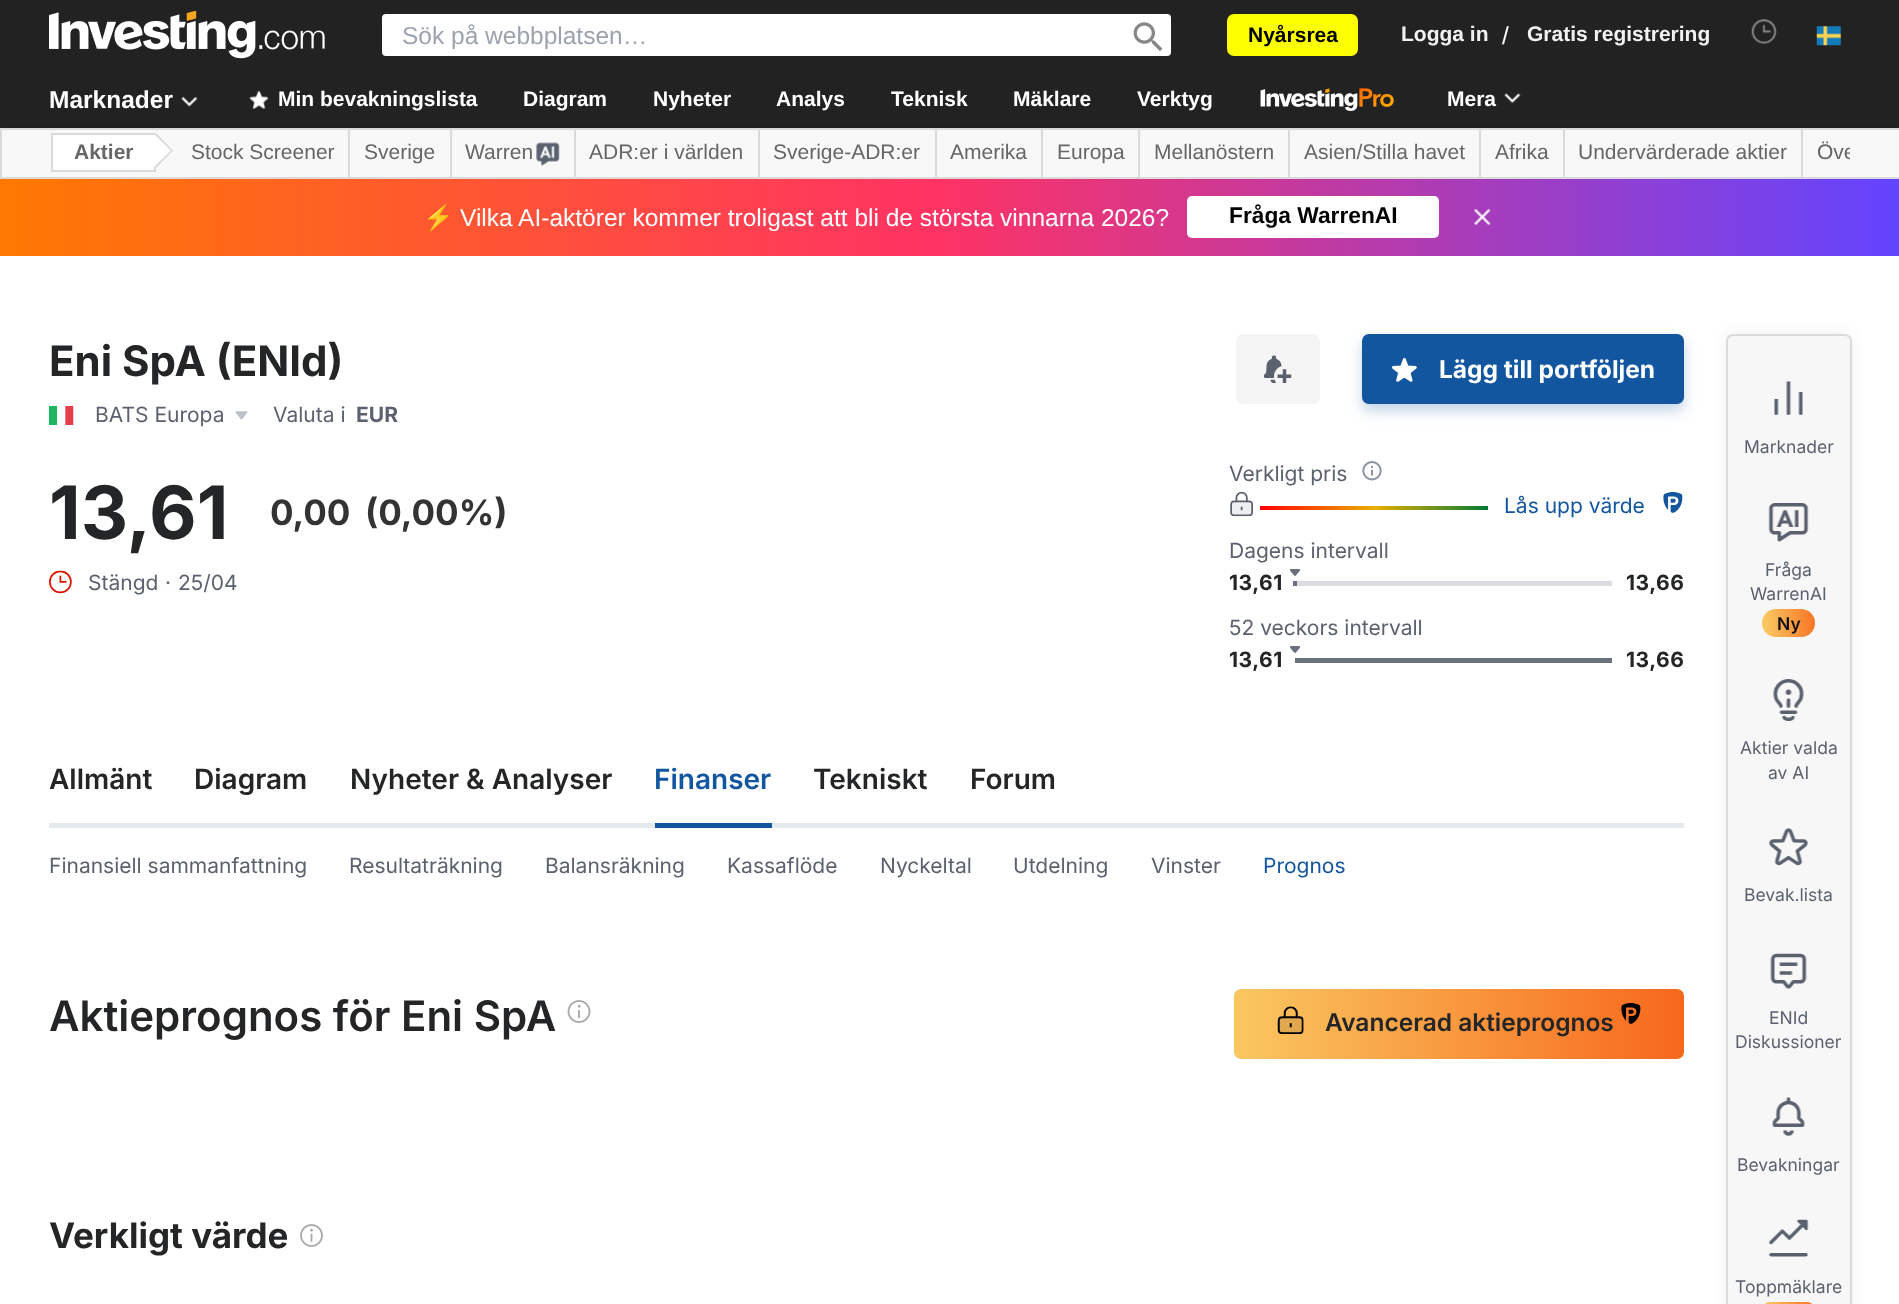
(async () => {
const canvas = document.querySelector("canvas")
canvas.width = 1899
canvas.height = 1304
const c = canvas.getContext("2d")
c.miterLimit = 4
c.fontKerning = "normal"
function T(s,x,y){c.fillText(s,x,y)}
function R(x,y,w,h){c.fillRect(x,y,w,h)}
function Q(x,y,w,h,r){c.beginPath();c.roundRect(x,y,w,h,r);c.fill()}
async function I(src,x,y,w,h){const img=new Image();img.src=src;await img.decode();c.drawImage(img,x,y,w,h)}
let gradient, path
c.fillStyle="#fff"
R(0,0,1899,1304)
c.fillStyle="#222"
R(0,0,1899,128)
await I("1.png",49,11,276,48)
c.fillStyle="#fff"
Q(382,14,789,42,4)
c.save()
c.beginPath()
c.rect(403,21,698,28)
c.clip()
c.font="24.5px Liberation Sans"
c.fillStyle="#9ca3af"
T("Sök på webbplatsen…",402,44)
c.restore()
await I("2.png",1133,22,30,29)
c.fillStyle="#fbff00"
Q(1227,14,131,42,7)
c.font="bold 21px Liberation Sans"
c.fillStyle="#000"
T("Nyårsrea",1248,42)
c.fillStyle="#f2f2f2"
T("Logga in",1401,41)
c.font="24.5px Liberation Sans"
c.fillStyle="#fff"
T("/",1502,44)
c.font="bold 21px Liberation Sans"
c.fillStyle="#f2f2f2"
T("Gratis registrering",1527,41)
await I("3.png",1751,19,26,26)
await I("4.png",1816,26,25,20)
c.font="bold 24.5px Liberation Sans"
c.fillStyle="#fff"
T("Marknader",49,108)
await I("5.png",181,96,17,11)
await I("6.png",249,90,20,19)
c.font="bold 21px Liberation Sans"
T("Min bevakningslista",278,106)
T("Diagram",523,106)
T("Nyheter",653,106)
T("Analys",776,106)
T("Teknisk",891,106)
T("Mäklare",1013,106)
T("Verktyg",1137,106)
await I("7.png",1260,88,134,23)
T("Mera",1447,106)
await I("8.png",1504,93,17,11)
c.fillStyle="#00000033"
c.filter="blur(2.5px)"
c.beginPath()
c.rect(0,130,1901,50)
c.fill()
c.filter="none"
c.fillStyle="#f8f8f8"
c.beginPath()
c.rect(1,129,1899,49)
c.fill()
c.strokeStyle="#dadada"
c.lineWidth=2
c.stroke()
c.fillStyle="#fff"
c.beginPath()
c.rect(52,134,103,37)
c.fill()
c.stroke()
c.fillStyle="#666"
T("Aktier",74,159)
c.fillStyle="#fff"
path = new Path2D("M156 133l17 17.5l-17 17.5l-17.5-17.5z")
c.fill(path)
c.fillStyle="#dadada"
path = new Path2D("M156 133l17 17.5l-1 1l-17.5-17z")
c.fill(path)
path = new Path2D("M172 149.5l1 1l-17 17.5l-1.5-1.5z")
c.fill(path)
R(348,130,2,47)
c.font="21px Liberation Sans"
c.fillStyle="#666"
T("Stock Screener",191,159)
c.fillStyle="#dadada"
R(450,130,2,47)
c.fillStyle="#666"
T("Sverige",364,159)
c.fillStyle="#dadada"
R(574,130,2,47)
c.fillStyle="#666"
T("Warren",465,159)
await I("9.png",536,142,24,24)
c.fillStyle="#dadada"
R(758,130,2,47)
c.fillStyle="#666"
T("ADR:er i världen",589,159)
c.fillStyle="#dadada"
R(935,130,2,47)
c.fillStyle="#666"
T("Sverige-ADR:er",773,159)
c.fillStyle="#dadada"
R(1041,130,2,47)
c.fillStyle="#666"
T("Amerika",950,159)
c.fillStyle="#dadada"
R(1138,130,2,47)
c.fillStyle="#666"
T("Europa",1057,159)
c.fillStyle="#dadada"
R(1288,130,2,47)
c.fillStyle="#666"
T("Mellanöstern",1154,159)
c.fillStyle="#dadada"
R(1479,130,2,47)
c.fillStyle="#666"
T("Asien/Stilla havet",1304,159)
c.fillStyle="#dadada"
R(1563,130,2,47)
c.fillStyle="#666"
T("Afrika",1495,159)
c.fillStyle="#dadada"
R(1801,130,2,47)
c.fillStyle="#666"
T("Undervärderade aktier",1578,159)
c.save()
c.beginPath()
c.rect(51,130,1799,47)
c.clip()
T("Öve",1817,159)
c.restore()
gradient = c.createLinearGradient(0,217,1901,217)
gradient.addColorStop(0,"#ff7901")
gradient.addColorStop(.49,"#ff3363")
gradient.addColorStop(1,"#6244ff")
c.fillStyle = gradient
R(0,179,1899,77)
c.font="24.5px Noto Color Emoji"
c.fillStyle="#fff"
T("⚡",423,226)
c.font="24.5px Liberation Sans"
T("Vilka AI-aktörer kommer troligast att bli de största vinnarna 2026?",460,226)
Q(1187,196,252,42,5)
c.font="bold 22.75px Liberation Sans"
c.fillStyle="#000"
T("Fråga WarrenAI",1229,223)
await I("10.png",1473,208,18,18)
c.font="bold 42px Inter"
c.fillStyle="#232526"
T("Eni SpA (ENId)",49,376)
await I("11.png",49,406,25,19)
c.font="21px Inter"
c.fillStyle="#5b616e"
T("BATS Europa",95,422)
await I("12.png",235,411,13,9)
T("Valuta i",273,422)
c.font="bold 21px Inter"
T("EUR",356,422)
c.fillStyle="#f5f5f5"
Q(1236,334,84,70,7)
await I("13.png",1264,355,28,28)
c.fillStyle="#1256a040"
c.filter="blur(7px)"
c.beginPath()
c.roundRect(1362,341,322,70,7)
c.fill()
c.filter="none"
c.fillStyle="#1256a0"
Q(1362,334,322,70,7)
await I("14.png",1392,358,25,24)
c.font="bold 24.5px Inter"
c.fillStyle="#fff"
T("Lägg till portföljen",1439,378)
c.font="bold 73.5px Inter"
c.fillStyle="#232526"
T("13,61",49,539)
c.font="bold 35px Inter"
c.fillStyle="#333"
T("0,00",270,525)
T("(0,00%)",365,525)
await I("15.png",49,570,23,24)
c.font="21px Inter"
c.fillStyle="#5b616e"
T("Stängd",88,590)
T("·",165,590)
T("25/04",178,590)
T("Verkligt pris",1229,481)
await I("16.png",1362,461,20,20)
await I("17.png",1230,491,23,26)
gradient = c.createLinearGradient(1260,508,1488,508)
gradient.addColorStop(0,"#f00")
gradient.addColorStop(.5,"#ebae04")
gradient.addColorStop(1,"#007c32")
c.fillStyle = gradient
R(1260,506,228,4)
c.fillStyle="#1256a0"
T("Lås upp värde",1504,513)
await I("18.png",1663,492,20,21)
c.fillStyle="#5b616e"
T("Dagens intervall",1229,558)
c.letterSpacing="0.5px"
c.font="bold 21px Inter"
c.fillStyle="#232526"
T("13,61",1229,590)
c.fillStyle="#dadbde"
R(1295,581,317,5)
await I("19.png",1290,569,10,7)
c.fillStyle="#6a707c"
R(1293,581,4,5)
c.fillStyle="#232526"
T("13,66",1626,590)
c.letterSpacing="0px"
c.font="21px Inter"
c.fillStyle="#5b616e"
T("52 veckors intervall",1229,635)
c.letterSpacing="0.5px"
c.font="bold 21px Inter"
c.fillStyle="#232526"
T("13,61",1229,667)
await I("19.png",1290,646,10,7)
c.fillStyle="#6a707c"
R(1295,658,317,5)
c.fillStyle="#232526"
T("13,66",1626,667)
c.fillStyle="#e6e9eb"
R(49,823,1635,5)
c.letterSpacing="0px"
c.font="600 28px Inter"
c.fillStyle="#232526"
T("Allmänt",49,789)
T("Diagram",194,789)
T("Nyheter & Analyser",350,789)
c.fillStyle="#1256a0"
R(655,823,117,5)
T("Finanser",654,789)
c.fillStyle="#232526"
T("Tekniskt",813,789)
T("Forum",970,789)
c.font="21px Inter"
c.fillStyle="#5b616e"
T("Finansiell sammanfattning",49,873)
T("Resultaträkning",349,873)
T("Balansräkning",545,873)
T("Kassaflöde",727,873)
T("Nyckeltal",880,873)
T("Utdelning",1013,873)
T("Vinster",1151,873)
c.fillStyle="#1256a0"
T("Prognos",1263,873)
c.font="600 42px Inter"
c.fillStyle="#232526"
T("Aktieprognos för Eni SpA",49,1031)
await I("20.png",567,1000,24,23)
gradient = c.createLinearGradient(1234,1024,1684,1024)
gradient.addColorStop(0,"#fac761")
gradient.addColorStop(1,"#f7681c")
c.fillStyle = gradient
Q(1234,989,450,70,7)
await I("21.png",1277,1006,27,28)
c.font="600 24.5px Inter"
c.fillStyle="#232526"
T("Avancerad aktieprognos",1325,1031)
await I("22.png",1621,1003,20,21)
c.font="bold 35px Inter"
T("Verkligt värde",49,1248)
await I("23.png",300,1224,23,23)
c.fillStyle="#23252612"
c.filter="blur(7px)"
c.beginPath()
c.roundRect(1726,334,126,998,7)
c.fill()
c.filter="none"
c.fillStyle="#f7f7f8"
c.beginPath()
c.roundRect(1727,335,124,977,6)
c.fill()
c.strokeStyle="#d9dcdf"
c.stroke()
await I("24.png",1774,381,29,34)
c.font="17.5px Inter"
c.fillStyle="#5b616e"
T("Marknader",1744,453)
await I("25.png",1768,503,41,39)
T("Fråga",1765,576)
T("WarrenAI",1750,600)
gradient = c.createLinearGradient(1761,625,1823,621)
gradient.addColorStop(.07,"#fac761")
gradient.addColorStop(1,"#f7681c")
c.fillStyle = gradient
Q(1762,609,53,28,14)
c.font="600 17.5px Inter"
c.fillStyle="#111"
T("Ny",1777,630)
await I("26.png",1773,679,31,42)
c.font="17.5px Inter"
c.fillStyle="#5b616e"
T("Aktier valda",1740,754)
T("av AI",1768,779)
await I("27.png",1768,828,41,38)
T("Bevak.lista",1744,901)
await I("28.png",1770,953,37,36)
T("ENId",1769,1024)
T("Diskussioner",1735,1048)
await I("29.png",1772,1097,33,39)
T("Bevakningar",1737,1171)
await I("30.png",1768,1219,41,38)
T("Toppmäklare",1735,1293)
gradient = c.createLinearGradient(1761,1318,1823,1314)
gradient.addColorStop(.07,"#fac761")
gradient.addColorStop(1,"#f7681c")
c.fillStyle = gradient
Q(1762,1302,53,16,14)
})()
